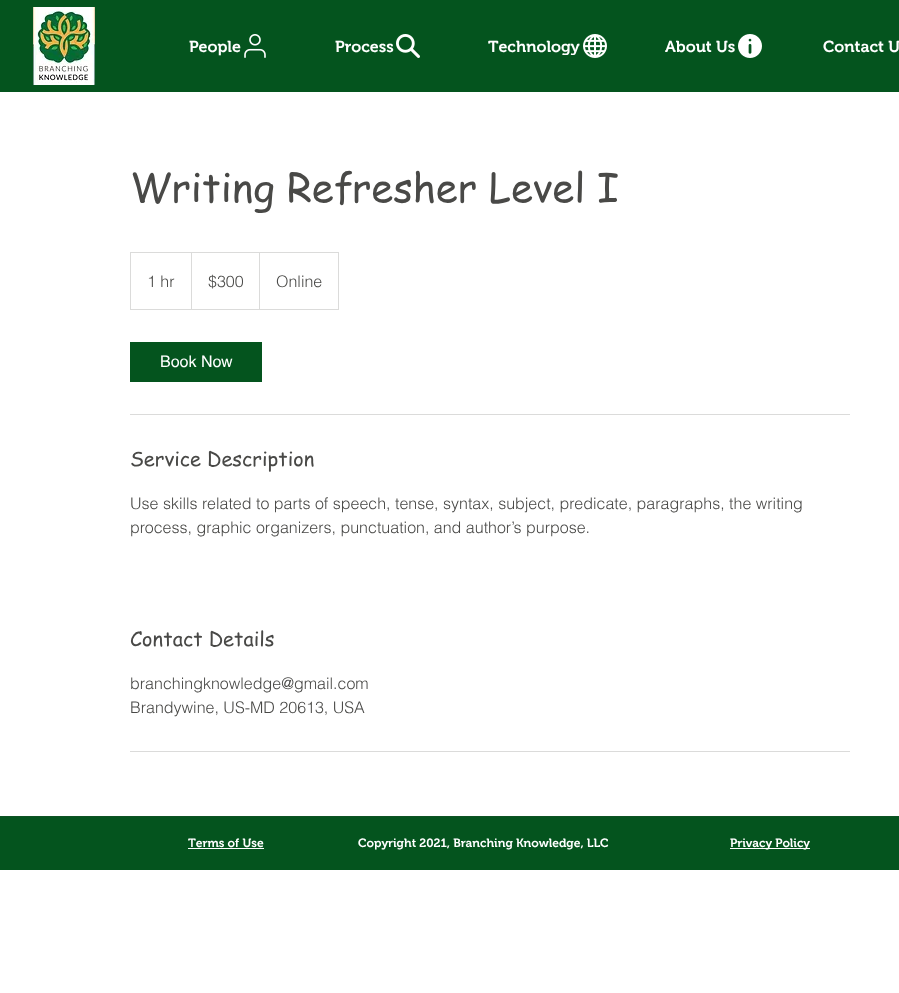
(async () => {
const canvas = document.querySelector("canvas")
canvas.width = 899
canvas.height = 993
const c = canvas.getContext("2d")
c.miterLimit = 4
c.fontKerning = "normal"
function T(s,x,y){c.fillText(s,x,y)}
function R(x,y,w,h){c.fillRect(x,y,w,h)}
async function I(src,x,y,w,h){const img=new Image();img.src=src;await img.decode();c.drawImage(img,x,y,w,h)}
let path
c.fillStyle="#fff"
R(0,0,899,993)
c.fillStyle="#04541e"
R(0,0,899,92)
await I("1.png",33,7,62,78)
c.font="600 16px 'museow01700'"
c.fillStyle="#fff"
T("People",189,52)
await I("2.png",244,34,22,24)
T("Process",335,52)
await I("3.png",396,34,24,24)
c.save()
c.beginPath()
c.rect(488,38,92,17)
c.clip()
T("Technology",488,52)
c.restore()
await I("4.png",583,34,24,24)
T("About Us",665,52)
await I("5.png",738,34,24,24)
T("Contact U",823,52)
c.font="40px 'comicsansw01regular'"
c.fillStyle="#494947"
T("Writing Refresher Level I",130,202)
c.strokeStyle="#dbdbda"
c.strokeRect(130.5,252.5,208,57)
c.font="300 16px helvetica"
T("1 hr",147,287)
c.fillStyle="#dbdbda"
path = new Path2D("M191 309v-57l1 1v56z")
c.fill(path)
c.fillStyle="#494947"
T("$300",208,287)
c.fillStyle="#dbdbda"
path = new Path2D("M259 309v-57l1 1v56z")
c.fill(path)
c.fillStyle="#494947"
T("Online",276,287)
c.fillStyle="#04541e"
R(130,342,132,40)
c.font="16px helvetica"
c.fillStyle="#fff"
T("Book Now",160,367)
c.fillStyle="#dbdbda"
R(130,414,720,1)
c.font="20px 'comicsansw01regular'"
c.fillStyle="#494947"
T("Service Description",130,466)
c.font="300 16px helvetica"
T("Use skills related to parts of speech, tense, syntax, subject, predicate, paragraphs, the writing",130,509)
T("process, graphic organizers, punctuation, and author’s purpose.",130,533)
c.font="20px 'comicsansw01regular'"
T("Contact Details",130,646)
c.font="300 16px helvetica"
T("branchingknowledge@gmail.com",130,689)
T("Brandywine, US-MD 20613, USA",130,713)
c.fillStyle="#dbdbda"
R(130,751,720,1)
c.fillStyle="#04541e"
R(0,817,899,53)
c.fillStyle="#0e5224"
R(0,816,899,1)
c.font="600 12px 'museow01700'"
c.fillStyle="#fff"
T("Terms of Use",188,847)
R(188,848,76,1)
T("Copyright 2021, Branching Knowledge, LLC",358,847)
R(730,848,80,1)
T("Privacy Policy",730,847)
})()
